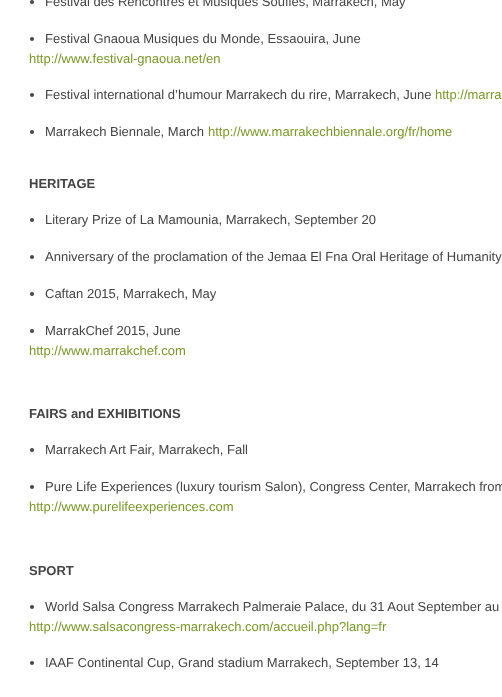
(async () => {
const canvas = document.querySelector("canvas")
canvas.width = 502
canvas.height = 697
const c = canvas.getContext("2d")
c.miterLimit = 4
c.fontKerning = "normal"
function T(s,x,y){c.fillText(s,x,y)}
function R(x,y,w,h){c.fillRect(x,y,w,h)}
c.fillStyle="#fff"
R(0,0,502,697)
c.fillStyle="#444"
c.beginPath()
c.arc(32,2,2,0,7)
c.fill()
c.font="13px Liberation Sans"
T("Festival des Rencontres et Musiques Soufies, Marrakech, May",45,6)
c.beginPath()
c.arc(32,39,2,0,7)
c.fill()
T("Festival Gnaoua Musiques du Monde, Essaouira, June",45,43)
c.fillStyle="#779926"
T("http://www.festival-gnaoua.net/en",29,63)
c.fillStyle="#444"
c.beginPath()
c.arc(32,95,2,0,7)
c.fill()
T("Festival international d’humour Marrakech du rire, Marrakech, June",45,99)
c.fillStyle="#779926"
T("http://marra",435,99)
c.fillStyle="#444"
c.beginPath()
c.arc(32,132,2,0,7)
c.fill()
T("Marrakech Biennale, March",45,136)
c.fillStyle="#779926"
T("http://www.marrakechbiennale.org/fr/home",208,136)
c.font="bold 13px Liberation Sans"
c.fillStyle="#444"
T("HERITAGE",29,188)
c.beginPath()
c.arc(32,220,2,0,7)
c.fill()
c.font="13px Liberation Sans"
T("Literary Prize of La Mamounia, Marrakech, September 20",45,224)
c.beginPath()
c.arc(32,257,2,0,7)
c.fill()
T("Anniversary of the proclamation of the Jemaa El Fna Oral Heritage of Humanity",45,261)
c.beginPath()
c.arc(32,294,2,0,7)
c.fill()
T("Caftan 2015, Marrakech, May",45,298)
c.beginPath()
c.arc(32,331,2,0,7)
c.fill()
T("MarrakChef 2015, June",45,335)
c.fillStyle="#779926"
T("http://www.marrakchef.com",29,355)
c.font="bold 13px Liberation Sans"
c.fillStyle="#444"
T("FAIRS and EXHIBITIONS",29,418)
c.beginPath()
c.arc(32,450,2,0,7)
c.fill()
c.font="13px Liberation Sans"
T("Marrakech Art Fair, Marrakech, Fall",45,454)
c.beginPath()
c.arc(32,487,2,0,7)
c.fill()
T("Pure Life Experiences (luxury tourism Salon), Congress Center, Marrakech from",45,491)
c.fillStyle="#779926"
T("http://www.purelifeexperiences.com",29,511)
c.font="bold 13px Liberation Sans"
c.fillStyle="#444"
T("SPORT",29,575)
c.beginPath()
c.arc(32,607,2,0,7)
c.fill()
c.font="13px Liberation Sans"
T("World Salsa Congress Marrakech Palmeraie Palace, du 31 Aout September au",45,611)
c.fillStyle="#779926"
T("http://www.salsacongress-marrakech.com/accueil.php?lang=fr",29,631)
c.fillStyle="#444"
c.beginPath()
c.arc(32,663,2,0,7)
c.fill()
T("IAAF Continental Cup, Grand stadium Marrakech, September 13, 14",45,667)
})()
